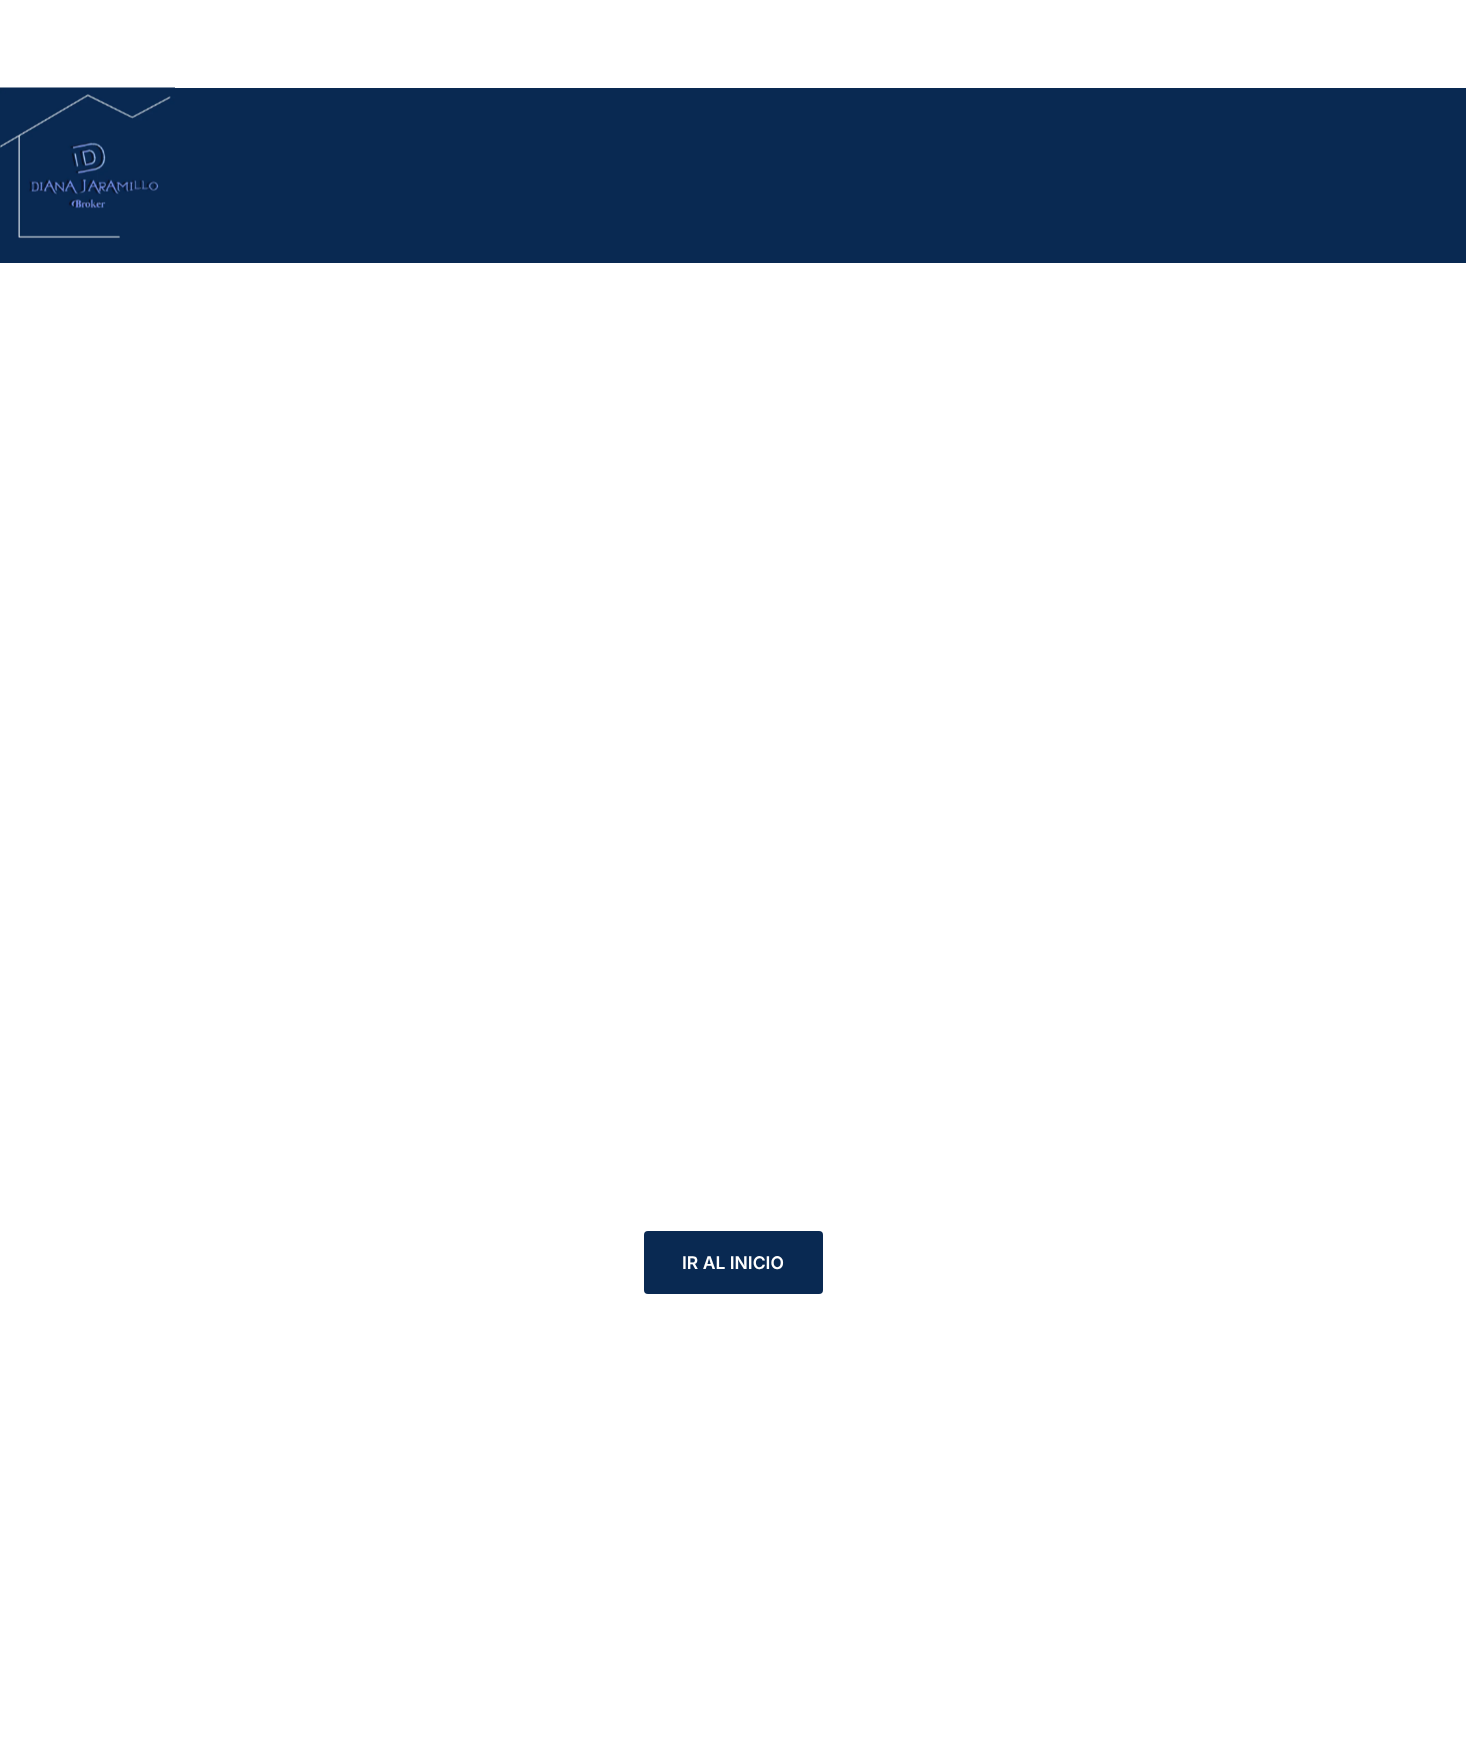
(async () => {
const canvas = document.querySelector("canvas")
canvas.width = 1466
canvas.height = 1756
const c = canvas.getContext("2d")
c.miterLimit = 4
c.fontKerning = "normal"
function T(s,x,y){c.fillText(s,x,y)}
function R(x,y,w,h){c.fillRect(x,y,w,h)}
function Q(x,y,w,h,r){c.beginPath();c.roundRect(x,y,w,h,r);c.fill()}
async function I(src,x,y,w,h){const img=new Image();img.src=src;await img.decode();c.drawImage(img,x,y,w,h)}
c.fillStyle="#fff"
R(0,0,1466,1756)
c.fillStyle="#092952"
R(0,88,1466,175)
await I("1.png",0,87,175,152)
Q(644,1231,179,63,4)
c.font="600 17.5px Inter"
c.fillStyle="#fff"
T("IR AL INICIO",682,1269)
})()
